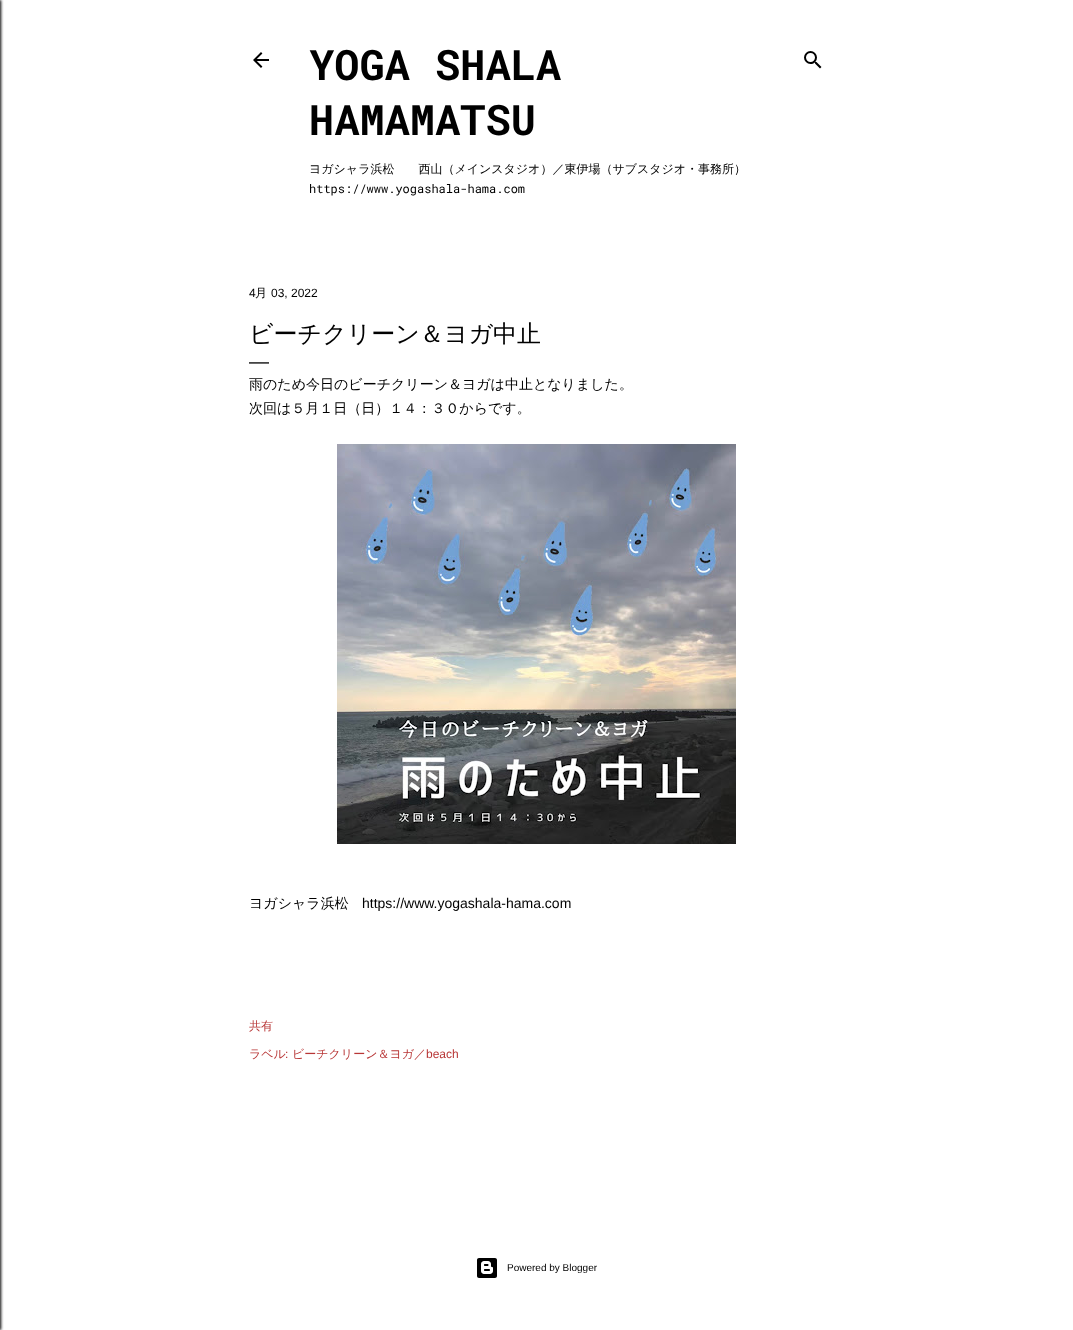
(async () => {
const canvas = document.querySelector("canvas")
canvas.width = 1073
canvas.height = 1330
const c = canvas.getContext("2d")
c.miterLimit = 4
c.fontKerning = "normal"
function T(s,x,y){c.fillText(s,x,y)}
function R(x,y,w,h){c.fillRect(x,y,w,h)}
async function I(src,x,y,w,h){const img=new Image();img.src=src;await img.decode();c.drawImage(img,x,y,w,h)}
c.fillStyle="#fff"
R(0,0,1073,1330)
c.fillStyle="#000"
c.filter="blur(1.5px)"
c.beginPath()
c.rect(-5,0,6,1330)
c.fill()
c.filter="none"
await I("1.png",253,52,16,16)
c.font="bold 42px Roboto Mono"
T("YOGA SHALA",309,80)
T("HAMAMATSU",309,135)
c.font="500 12px WenQuanYi Zen Hei"
T("ヨガシャラ浜松　　西山（メインスタジオ）／東伊場（サブスタジオ・事務所）",309,173)
c.font="12px Roboto Mono"
T("https://www.yogashala-hama.com",309,193)
await I("2.png",804,51,18,18)
c.font="12px Liberation Sans"
T("4",249,297)
c.font="500 12px WenQuanYi Zen Hei"
T("月",255,297)
c.font="12px Liberation Sans"
T("03, 2022",271,297)
c.font="500 24px WenQuanYi Zen Hei"
T("ビーチクリーン＆ヨガ中止",249,342)
c.font="20px Liberation Sans"
T("—",249,368)
c.font="500 14px WenQuanYi Zen Hei"
T("雨のため今日のビーチクリーン＆ヨガは中止となりました。",249,389)
T("次回は５月１日（日）１４：３０からです。",249,413)
await I("3.png",337,444,399,400)
T("ヨガシャラ浜松",249,908)
c.font="14px Liberation Sans"
T("https://www.yogashala-hama.com",362,908)
c.font="500 12px WenQuanYi Zen Hei"
c.fillStyle="#b83636"
T("共有",249,1030)
T("ラベル",249,1058)
c.font="12px Liberation Sans"
T(":",285,1058)
c.font="500 12px WenQuanYi Zen Hei"
T("ビーチクリーン＆ヨガ／",292,1058)
c.font="12px Liberation Sans"
T("beach",426,1058)
await I("4.png",477,1258,20,20)
c.font="10px Liberation Sans"
c.fillStyle="#000"
T("Powered by Blogger",507,1271)
})()
